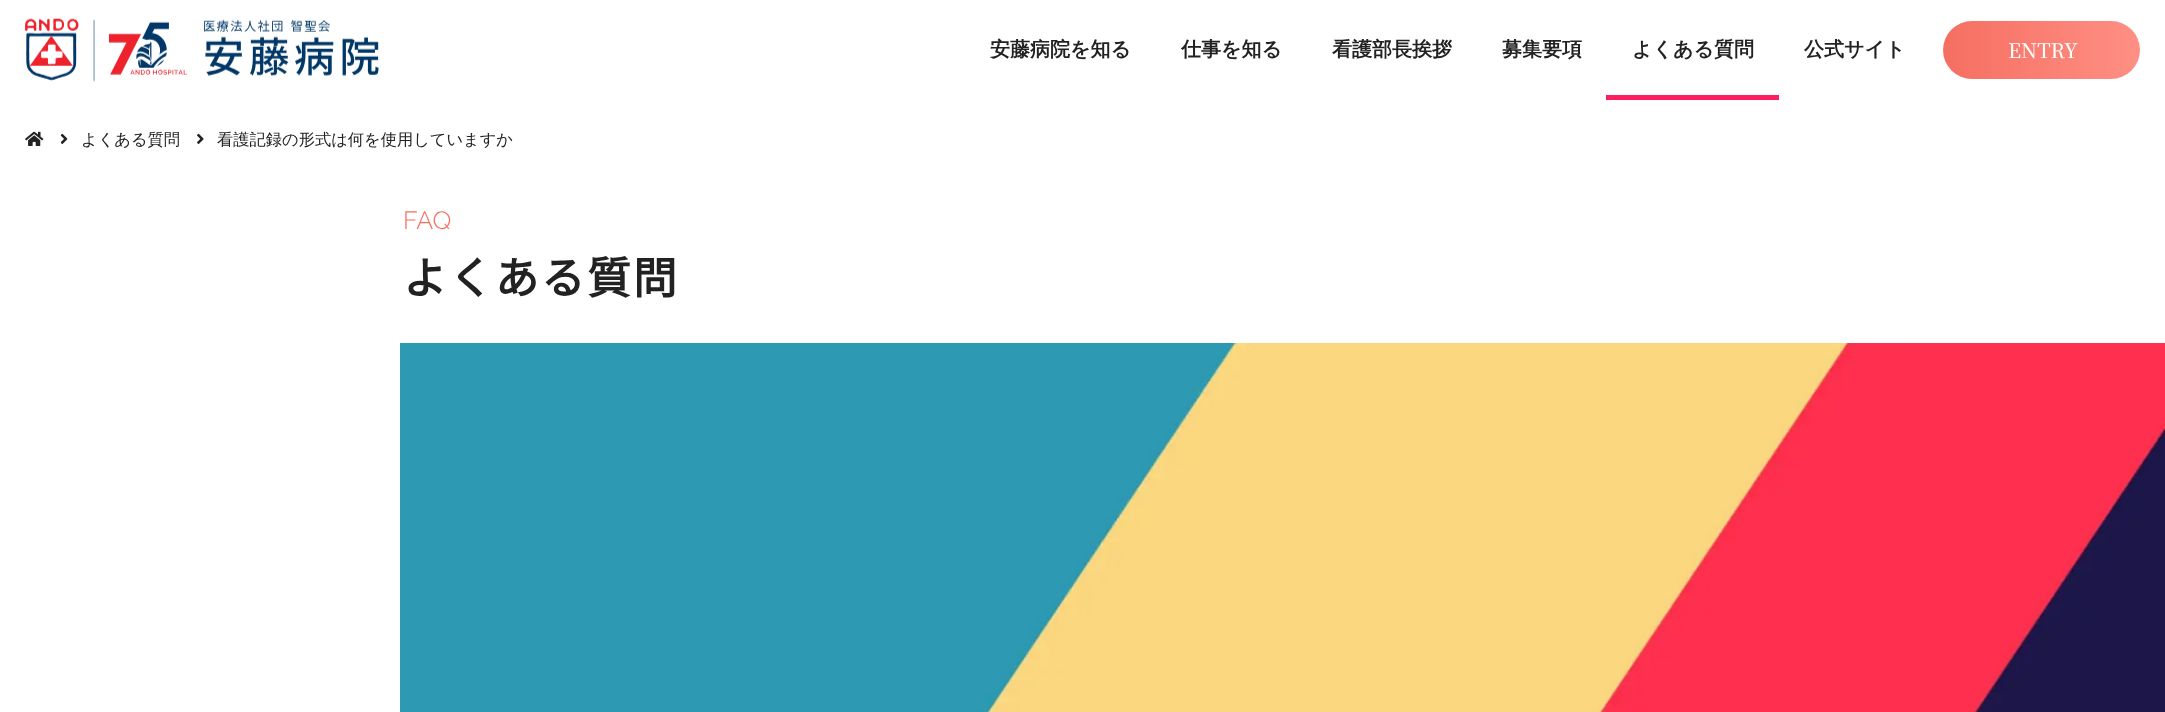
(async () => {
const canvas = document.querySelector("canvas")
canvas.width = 2165
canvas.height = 712
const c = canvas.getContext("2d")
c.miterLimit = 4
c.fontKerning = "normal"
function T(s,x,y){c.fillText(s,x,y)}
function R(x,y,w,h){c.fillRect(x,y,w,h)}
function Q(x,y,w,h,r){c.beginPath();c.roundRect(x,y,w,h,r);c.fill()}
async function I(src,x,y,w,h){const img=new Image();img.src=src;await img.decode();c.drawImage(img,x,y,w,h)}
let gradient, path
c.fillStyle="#fff"
R(0,0,2165,712)
await I("1.png",25,18,354,64)
c.font="bold 20px WenQuanYi Zen Hei"
c.fillStyle="#222"
T("安藤病院を知る",990,56)
T("仕事を知る",1181,56)
T("看護部長挨拶",1332,56)
T("募集要項",1502,56)
c.save()
c.beginPath()
c.rect(1606,0,173,100)
c.clip()
c.fillStyle="#ff1e5f"
path = new Path2D("M1482-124h420v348h-420zm124 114h173c1 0 2 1 2 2v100c0 2-1 3-2 3h-173c-1 0-2-1-2-3v-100c0-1 1-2 2-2z")
c.fill(path,"evenodd")
c.restore()
T("よくある質問",1632,56)
T("公式サイト",1804,56)
gradient = c.createLinearGradient(1943,50,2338,50)
gradient.addColorStop(0,"#f56f61")
gradient.addColorStop(.51,"#ff9085")
gradient.addColorStop(1,"#f56f61")
c.fillStyle = gradient
Q(1943,21,197,58,29)
c.font="200 20px Noto Serif JP"
c.fillStyle="#fff"
T("ENTRY",2008,58)
await I("2.png",25,131,19,15)
await I("3.png",60,133,8,11)
c.font="500 16.25px WenQuanYi Zen Hei"
c.fillStyle="#222"
T("よくある質問",81,145)
await I("4.png",197,133,7,11)
T("看護記録の形式は何を使用していますか",217,145)
c.font="100 25px Raleway"
c.fillStyle="#f56f61"
T("FAQ",403,229)
c.letterSpacing="2.25px"
c.font="bold 43.75px Noto Sans JP"
c.fillStyle="#222"
T("よくある質問",403,294)
await I("5.png",400,343,1765,369)
})()
